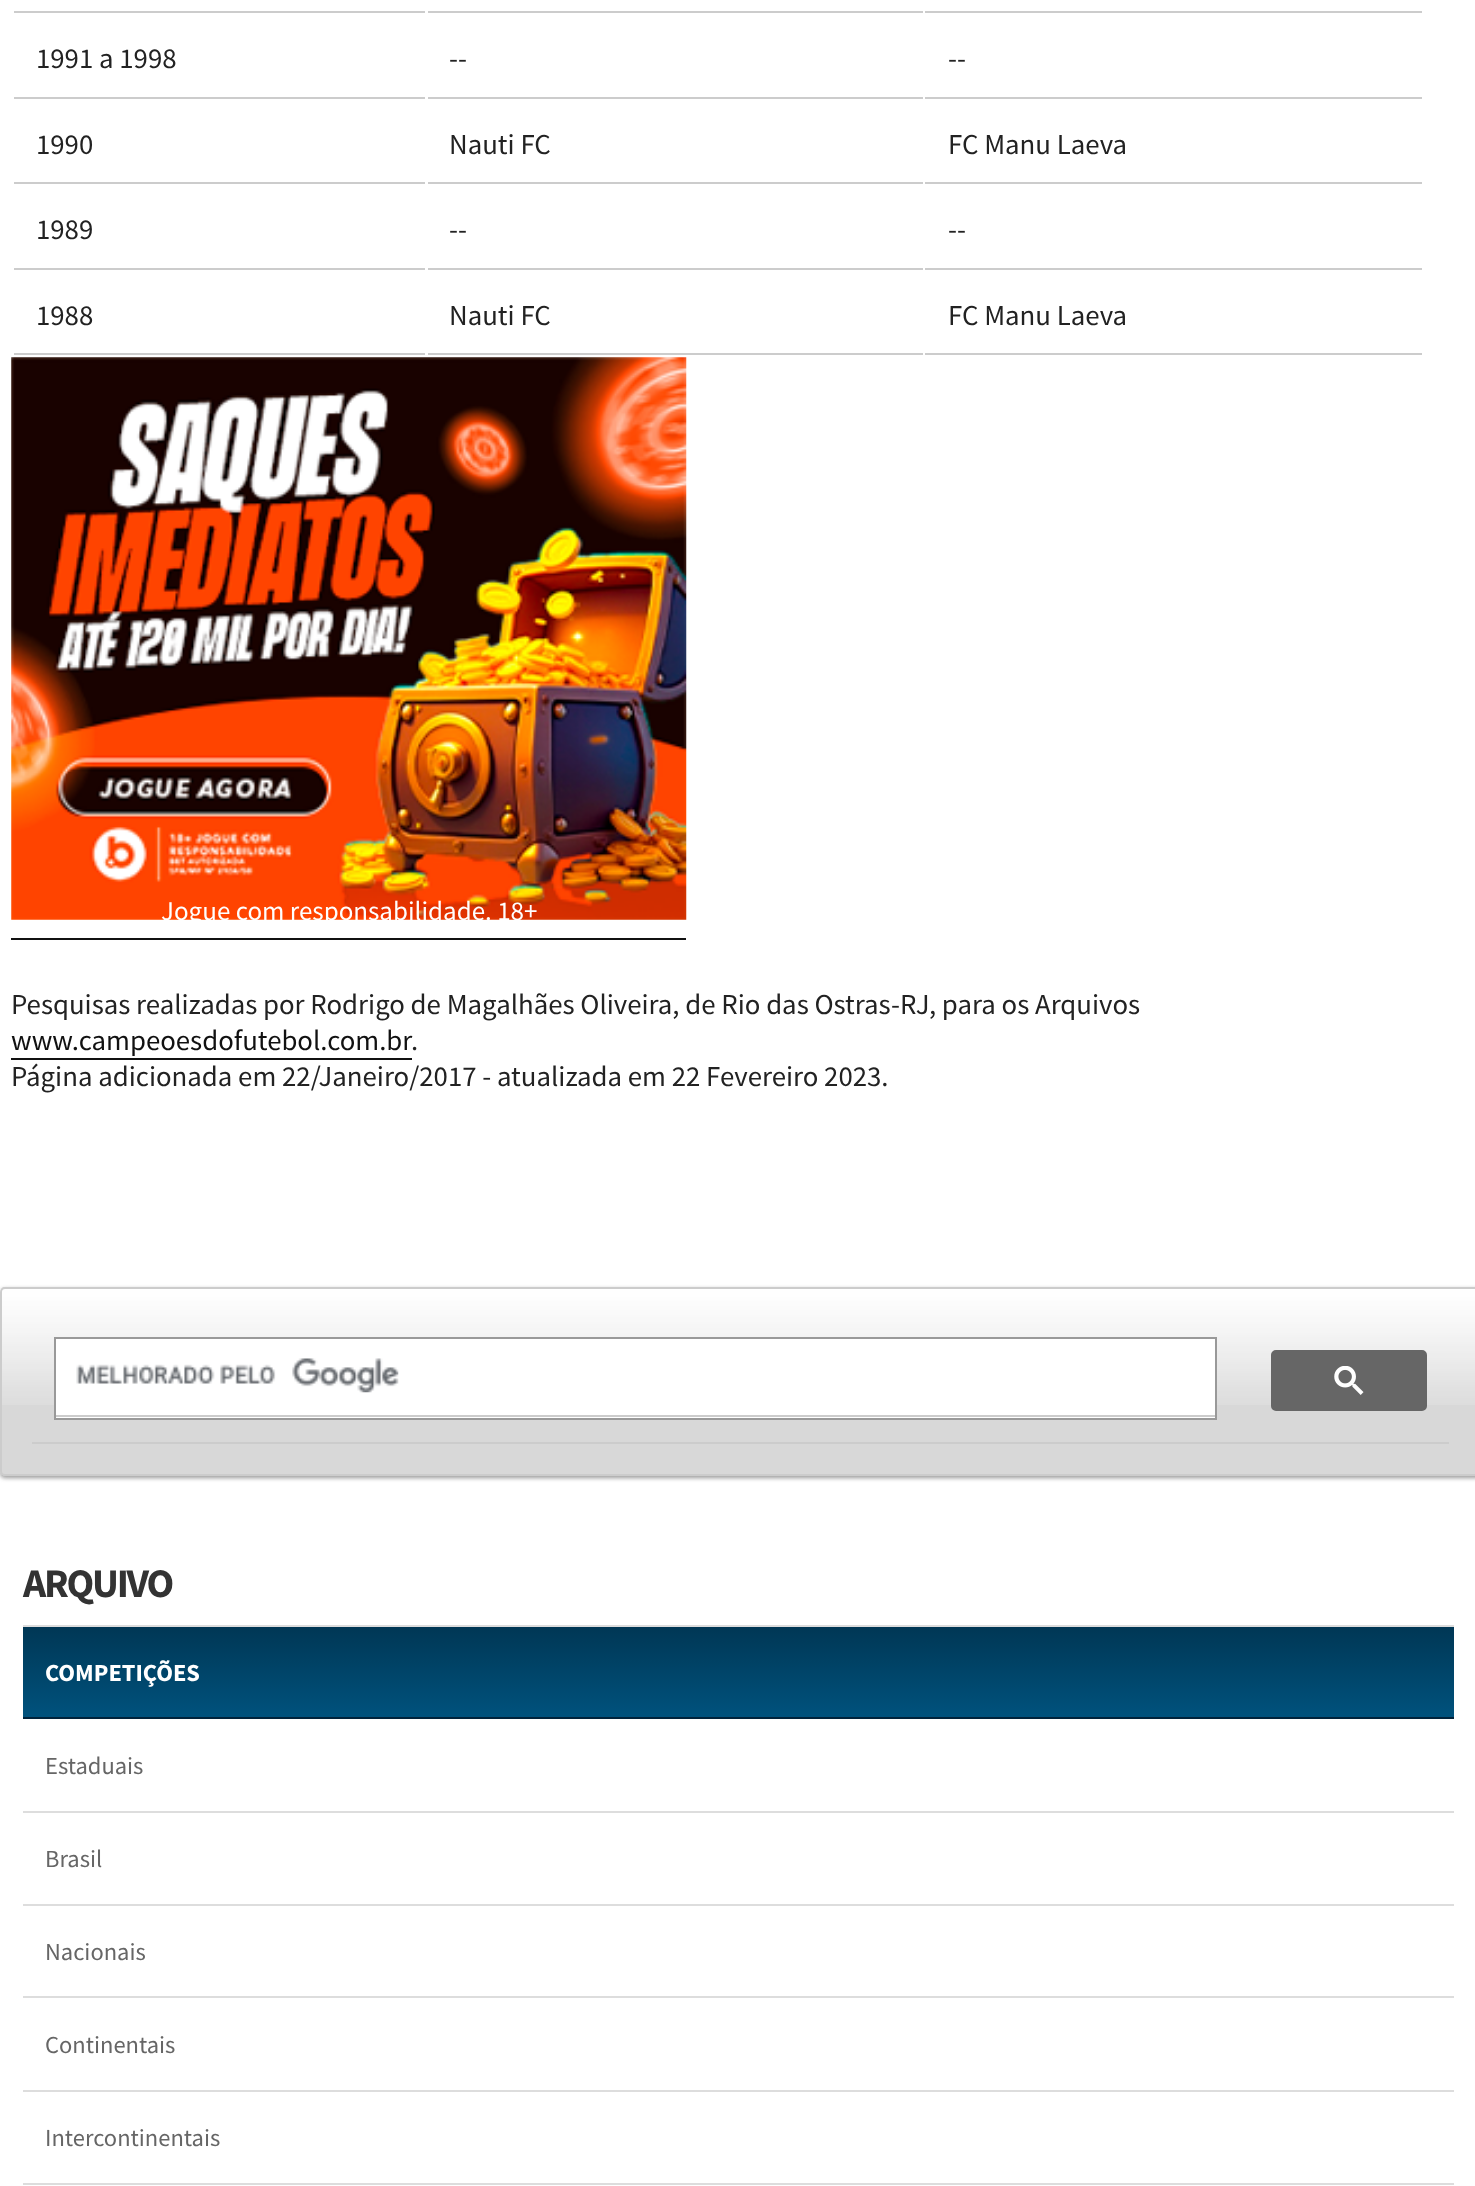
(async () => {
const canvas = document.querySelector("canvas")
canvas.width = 1475
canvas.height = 2186
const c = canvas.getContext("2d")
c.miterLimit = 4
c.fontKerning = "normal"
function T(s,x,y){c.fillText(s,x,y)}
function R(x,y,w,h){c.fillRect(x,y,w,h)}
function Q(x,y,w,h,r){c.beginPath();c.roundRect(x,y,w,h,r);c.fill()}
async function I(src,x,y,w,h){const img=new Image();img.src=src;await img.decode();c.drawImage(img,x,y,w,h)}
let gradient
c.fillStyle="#fff"
R(0,0,1475,2186)
c.fillStyle="#ccc"
R(14,11,411,2)
R(428,11,495,2)
R(925,11,497,2)
R(14,97,411,2)
c.font="28.8px Source Sans Pro"
c.fillStyle="#222"
T("1991 a 1998",36,68)
c.fillStyle="#ccc"
R(428,97,495,2)
c.fillStyle="#222"
T("--",449,68)
c.fillStyle="#ccc"
R(925,97,497,2)
c.fillStyle="#222"
T("--",948,68)
c.fillStyle="#ccc"
R(14,182,411,2)
c.fillStyle="#222"
T("1990",36,154)
c.fillStyle="#ccc"
R(428,182,495,2)
c.fillStyle="#222"
T("Nauti FC",449,154)
c.fillStyle="#ccc"
R(925,182,497,2)
c.fillStyle="#222"
T("FC Manu Laeva",948,154)
c.fillStyle="#ccc"
R(14,268,411,2)
c.fillStyle="#222"
T("1989",36,239)
c.fillStyle="#ccc"
R(428,268,495,2)
c.fillStyle="#222"
T("--",449,239)
c.fillStyle="#ccc"
R(925,268,497,2)
c.fillStyle="#222"
T("--",948,239)
c.fillStyle="#ccc"
R(14,353,411,2)
c.fillStyle="#222"
T("1988",36,325)
c.fillStyle="#ccc"
R(428,353,495,2)
c.fillStyle="#222"
T("Nauti FC",449,325)
c.fillStyle="#ccc"
R(925,353,497,2)
c.fillStyle="#222"
T("FC Manu Laeva",948,325)
c.fillStyle="#111"
R(11,938,675,2)
await I("1.png",11,357,676,563)
c.font="27px Source Sans Pro"
c.fillStyle="#fff"
T("Jogue com responsabilidade. 18+",161,920)
c.font="28.8px Source Sans Pro"
c.fillStyle="#222"
T("Pesquisas realizadas por Rodrigo de Magalhães Oliveira, de Rio das Ostras-RJ, para os Arquivos",11,1014)
c.fillStyle="#111"
T("www.campeoesdofutebol.com.br",11,1050)
R(11,1058,401,2)
c.fillStyle="#222"
T(".",411,1050)
T("Página adicionada em 22/Janeiro/2017 - atualizada em 22 Fevereiro 2023.",11,1086)
c.fillStyle="#999"
c.filter="blur(2px)"
c.beginPath()
c.roundRect(0,1289,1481,189,5)
c.fill()
c.filter="none"
c.fillStyle="#d8d8d8"
Q(0,1287,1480,189,5)
await I("2.png",0,1288,1475,117)
c.beginPath()
c.roundRect(1,1288,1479,187,4)
c.strokeStyle="#ccc"
c.lineWidth=2
c.stroke()
c.fillStyle="#ccc"
R(32,1442,1417,2)
c.fillStyle="#fff"
c.beginPath()
c.rect(55,1338,1161,81)
c.fill()
c.strokeStyle="#999"
c.stroke()
c.fillStyle="#ccc"
R(56,1415,1159,2)
await I("3.png",76,1358,323,35)
c.fillStyle="#666"
c.beginPath()
c.roundRect(1272,1351,154,59,4)
c.fill()
c.strokeStyle="#666"
c.stroke()
await I("4.png",1334,1366,30,29)
c.letterSpacing="-2.25px"
c.font="bold 40.5px Source Sans Pro"
c.fillStyle="#333"
T("ARQUIVO",23,1597)
c.fillStyle="#ddd"
R(23,1625,1431,2)
gradient = c.createLinearGradient(738,1627,738,1717)
gradient.addColorStop(0,"#003755")
gradient.addColorStop(1,"#00527d")
c.fillStyle = gradient
R(23,1627,1431,90)
c.fillStyle="#00233c"
R(23,1717,1431,2)
c.letterSpacing="0px"
c.font="bold 24.5px Source Sans Pro"
c.fillStyle="#fff"
T("COMPETIÇÕES",45,1681)
c.fillStyle="#ddd"
R(23,1811,1431,2)
c.font="24.5px Source Sans Pro"
c.fillStyle="#666"
T("Estaduais",45,1774)
c.fillStyle="#ddd"
R(23,1904,1431,2)
c.fillStyle="#666"
T("Brasil",45,1867)
c.fillStyle="#ddd"
R(23,1996,1431,2)
c.fillStyle="#666"
T("Nacionais",45,1960)
c.fillStyle="#ddd"
R(23,2090,1431,2)
c.fillStyle="#666"
T("Continentais",45,2053)
c.fillStyle="#ddd"
R(23,2183,1431,2)
c.fillStyle="#666"
T("Intercontinentais",45,2146)
})()
